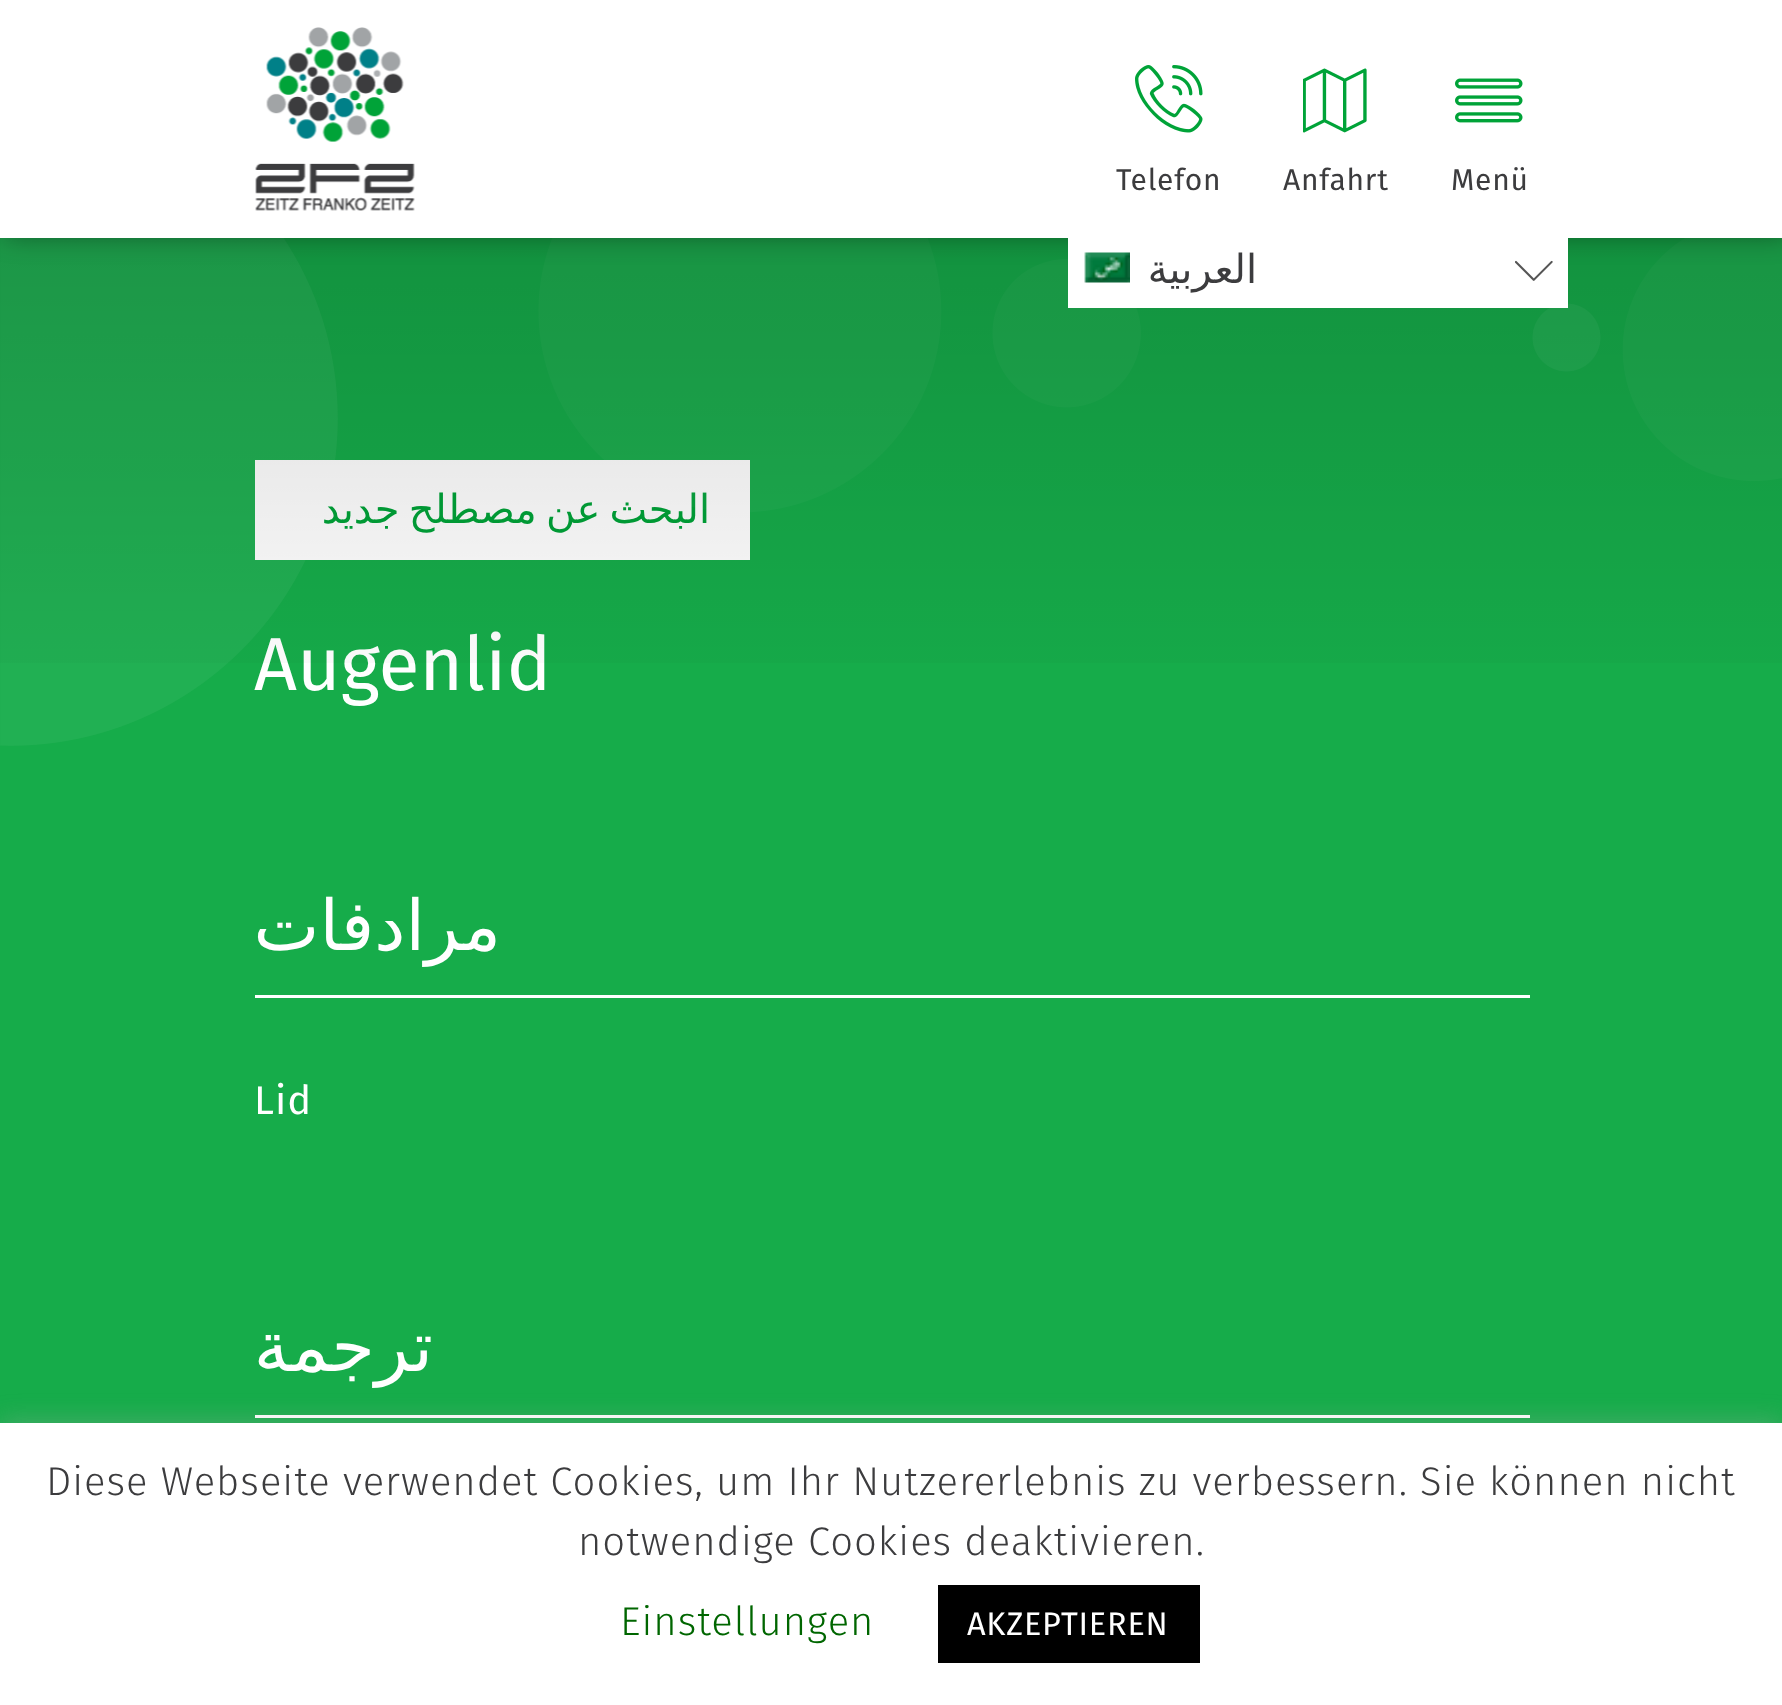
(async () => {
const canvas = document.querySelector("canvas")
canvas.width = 1782
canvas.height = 1705
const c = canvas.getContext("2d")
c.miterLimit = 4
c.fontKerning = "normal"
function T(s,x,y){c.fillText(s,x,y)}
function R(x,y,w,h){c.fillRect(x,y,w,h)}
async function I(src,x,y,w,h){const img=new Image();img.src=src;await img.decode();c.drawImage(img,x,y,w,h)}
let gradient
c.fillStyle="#16ac4a"
R(0,0,1782,1705)
c.fillStyle="#fff"
R(255,460,495,100)
c.letterSpacing="1px"
c.wordSpacing="-4.5px"
c.direction="rtl"
c.font="40px DejaVu Sans"
c.fillStyle="#00a338"
T("البحث عن مصطلح جديد",710,523)
c.letterSpacing="0px"
c.wordSpacing="0px"
c.direction="ltr"
c.font="75px Fira Sans"
c.fillStyle="#fff"
T("Augenlid",254,690)
await I("7.png",0,238,1782,508)
gradient = c.createLinearGradient(891,235,891,735)
gradient.addColorStop(0,"#00000026")
gradient.addColorStop(1,"#00000000")
c.fillStyle = gradient
R(0,238,1782,425)
c.fillStyle="#00000054"
c.filter="blur(12.5px)"
c.beginPath()
c.rect(5,0,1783,238)
c.fill()
c.filter="none"
c.fillStyle="#fff"
R(0,0,1782,238)
await I("1.png",255,27,160,184)
await I("2.png",1135,65,68,68)
c.letterSpacing="0.75px"
c.font="30px Fira Sans"
c.fillStyle="#3c3c3e"
T("Telefon",1116,190)
await I("3.png",1303,68,64,65)
T("Anfahrt",1283,190)
await I("4.png",1455,78,68,45)
T("Menü",1451,190)
c.fillStyle="#fff"
R(1068,238,500,70)
await I("5.png",1515,260,38,21)
await I("6.png",1084,252,46,31)
c.letterSpacing="1px"
c.direction="rtl"
c.font="40px DejaVu Sans"
c.fillStyle="#3c3c3e"
T("العربية",1257,283)
c.fillStyle="#fff"
R(255,995,1275,3)
c.letterSpacing="0px"
c.font="70px DejaVu Sans"
T("مرادفات",501,950)
c.letterSpacing="1px"
c.direction="ltr"
c.font="40px Fira Sans"
T("Lid",254,1114)
R(255,1415,1275,3)
c.letterSpacing="0px"
c.direction="rtl"
c.font="70px DejaVu Sans"
T("ترجمة",433,1371)
c.fillStyle="#acabab4d"
c.filter="blur(12.5px)"
c.beginPath()
c.rect(0,1420,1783,283)
c.fill()
c.filter="none"
c.fillStyle="#fff"
R(0,1423,1782,282)
c.letterSpacing="1px"
c.direction="ltr"
c.font="300 40px Fira Sans"
c.fillStyle="#3c3c3e"
T("Diese Webseite verwendet Cookies, um Ihr Nutzererlebnis zu verbessern. Sie können nicht",46,1495)
T("notwendige Cookies deaktivieren.",578,1555)
c.fillStyle="#060"
T("Einstellungen",620,1635)
c.fillStyle="#000"
R(938,1585,262,78)
c.letterSpacing="0.75px"
c.font="32.5px Fira Sans"
c.fillStyle="#fff"
T("AKZEPTIEREN",967,1635)
})()
